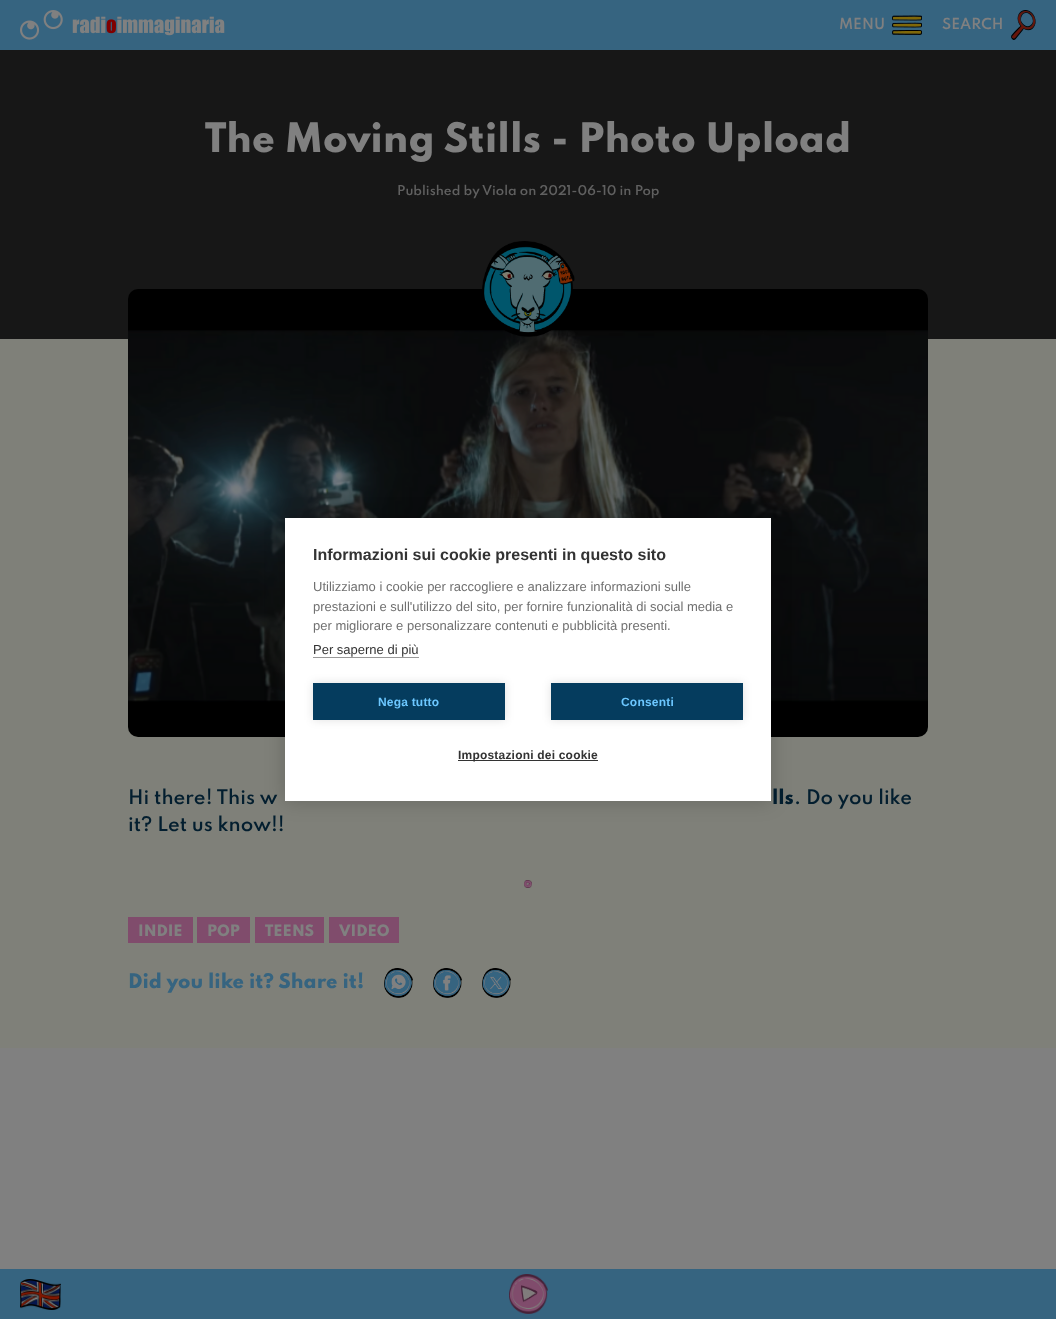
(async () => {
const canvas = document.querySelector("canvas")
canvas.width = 1056
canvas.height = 1319
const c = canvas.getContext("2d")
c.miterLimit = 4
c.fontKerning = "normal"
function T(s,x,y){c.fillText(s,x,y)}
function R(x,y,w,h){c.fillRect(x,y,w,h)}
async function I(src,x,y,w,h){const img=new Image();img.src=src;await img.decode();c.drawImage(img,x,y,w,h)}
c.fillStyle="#808080"
R(0,0,1056,1319)
c.fillStyle="#366480"
R(0,0,1056,50)
await I("1.png",20,10,205,30)
await I("2.png",892,15,30,20)
c.font="600 13.5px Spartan"
c.fillStyle="#808080"
T("MENU",839,29)
await I("3.png",1011,10,25,30)
T("SEARCH",942,29)
c.fillStyle="#171717"
R(0,50,1056,289)
c.font="800 36px Spartan"
c.fillStyle="#808080"
T("The Moving Stills - Photo Upload",205,152)
c.font="600 12px Spartan"
c.fillStyle="#606060"
T("Published by Viola on 2021-06-10 in Pop",397,195)
c.fillStyle="#7f8079"
R(0,339,1056,709)
await I("5.png",128,289,800,448)
await I("4.png",482,241,93,96)
c.font="600 18px Spartan"
c.fillStyle="#031e2f"
T("Hi there! This w",128,804)
c.font="800 18px Spartan"
T("lls",772,804)
c.font="600 18px Spartan"
T(". Do you like",794,804)
T("it? Let us know!!",128,831)
await I("6.png",524,880,8,8)
c.fillStyle="#804c6c"
R(128,917,65,26)
c.font="800 14px Spartan"
c.fillStyle="#808080"
T("INDIE",138,936)
c.fillStyle="#804c6c"
R(197,917,53,26)
c.fillStyle="#808080"
T("POP",207,936)
c.fillStyle="#804c6c"
R(255,917,69,26)
c.fillStyle="#808080"
T("TEENS",265,936)
c.fillStyle="#804c6c"
R(329,917,70,26)
c.fillStyle="#808080"
T("VIDEO",339,936)
c.font="800 18px Spartan"
c.fillStyle="#366480"
T("Did you like it? Share it!",128,988)
await I("7.png",384,968,29,30)
await I("8.png",433,968,29,30)
await I("9.png",482,968,29,30)
c.fillStyle="#00000033"
c.filter="blur(10px)"
c.beginPath()
c.rect(285,518,486,283)
c.fill()
c.filter="none"
c.fillStyle="#fff"
R(285,518,486,283)
c.font="bold 16px Liberation Sans"
c.fillStyle="#333"
T("Informazioni sui cookie presenti in questo sito",313,560)
c.font="13px Liberation Sans"
c.fillStyle="#707070"
T("Utilizziamo i cookie per raccogliere e analizzare informazioni sulle",313,591)
T("prestazioni e sull'utilizzo del sito, per fornire funzionalità di social media e",313,611)
T("per migliorare e personalizzare contenuti e pubblicità presenti.",313,630)
c.fillStyle="#333"
T("Per saperne di più",313,654)
c.fillStyle="#999"
R(313,657,106,1)
c.fillStyle="#0000001f"
c.filter="blur(5px)"
c.beginPath()
c.rect(313,683,192,37)
c.fill()
c.filter="none"
c.fillStyle="#053c5e"
R(313,683,192,37)
c.letterSpacing="0.2px"
c.font="bold 12px Liberation Sans"
c.fillStyle="#6cc7ff"
T("Nega tutto",378,706)
c.fillStyle="#0000001f"
c.filter="blur(5px)"
c.beginPath()
c.rect(551,683,192,37)
c.fill()
c.filter="none"
c.fillStyle="#053c5e"
R(551,683,192,37)
c.fillStyle="#6cc7ff"
T("Consenti",621,706)
c.fillStyle="#333"
R(458,760,140,1)
T("Impostazioni dei cookie",458,759)
c.fillStyle="#366480"
R(0,1269,1056,50)
await I("10.png",20,1279,41,31)
await I("11.png",509,1274,39,40)
})()
